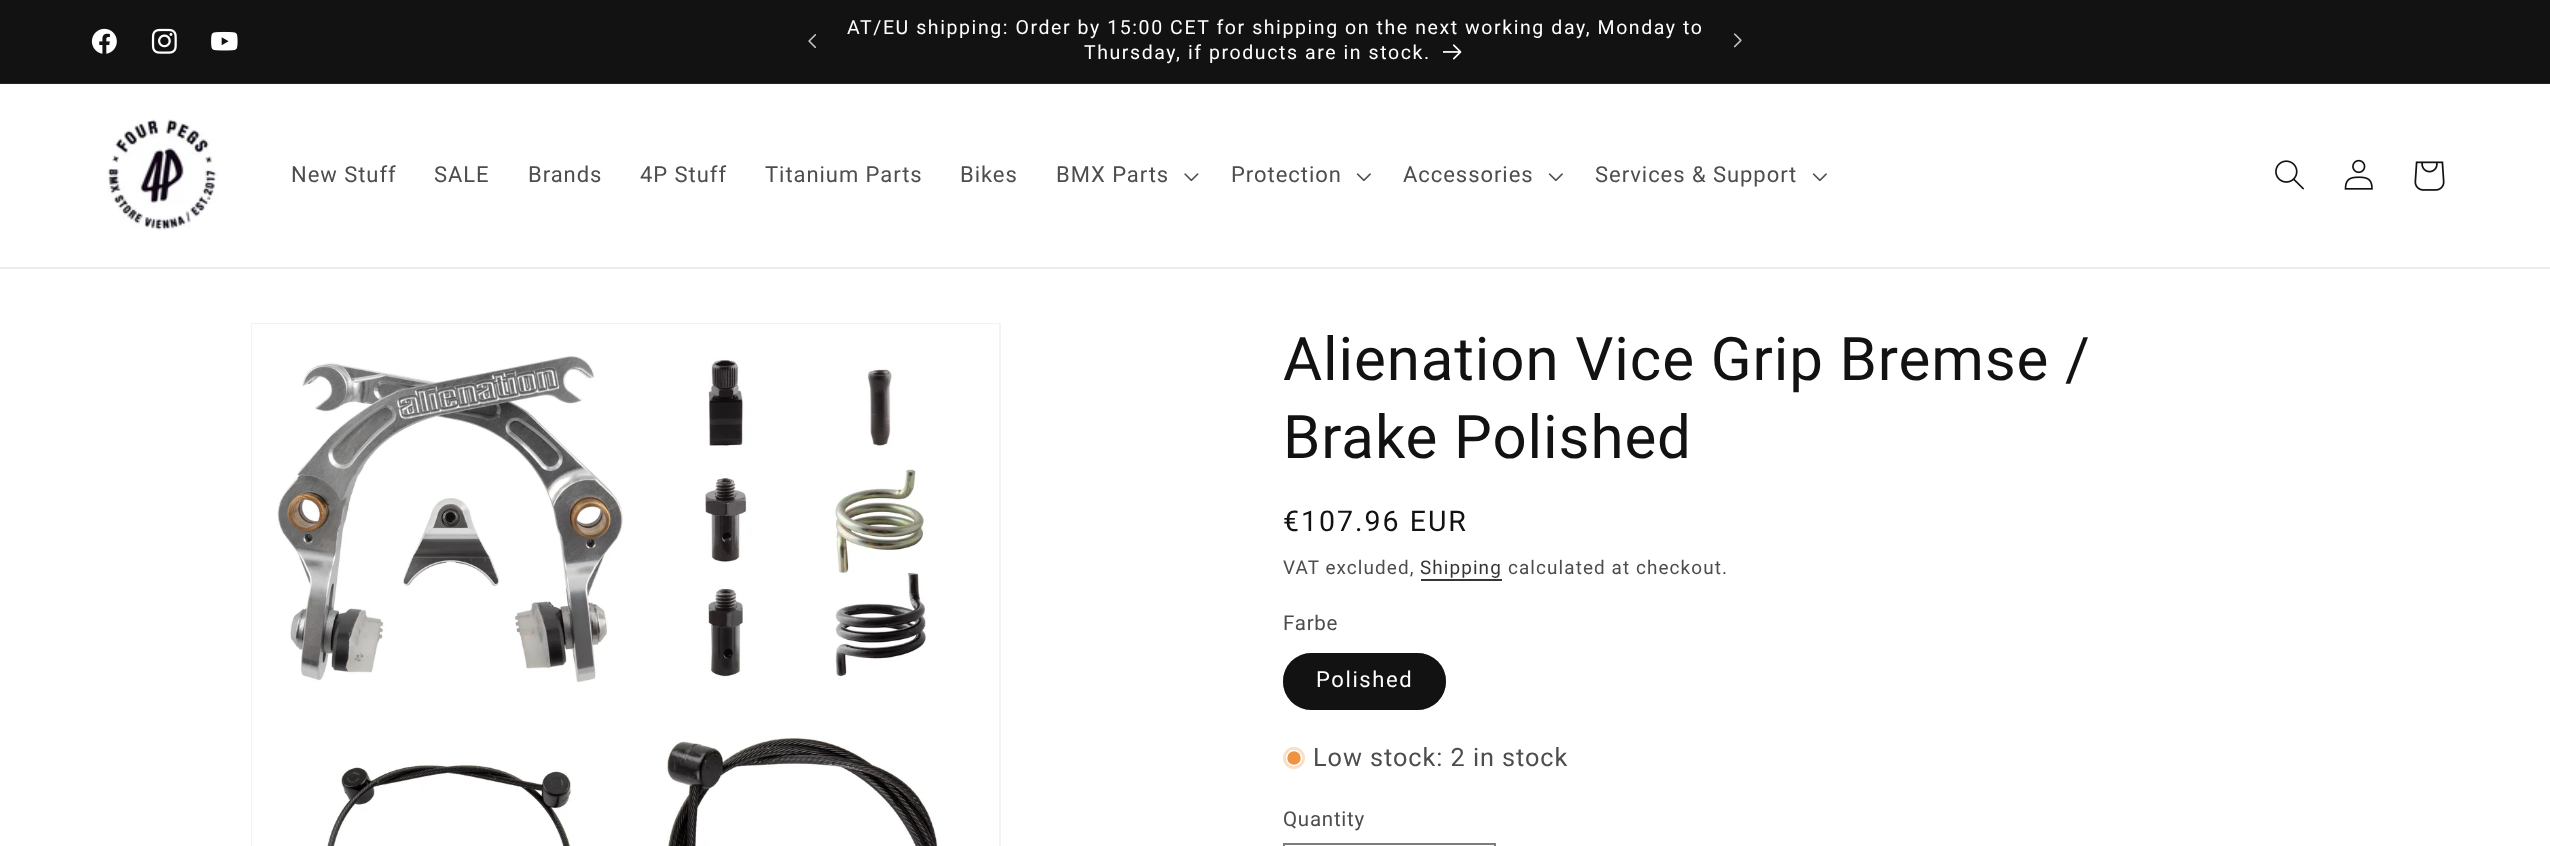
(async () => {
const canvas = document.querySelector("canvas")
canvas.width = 2550
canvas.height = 846
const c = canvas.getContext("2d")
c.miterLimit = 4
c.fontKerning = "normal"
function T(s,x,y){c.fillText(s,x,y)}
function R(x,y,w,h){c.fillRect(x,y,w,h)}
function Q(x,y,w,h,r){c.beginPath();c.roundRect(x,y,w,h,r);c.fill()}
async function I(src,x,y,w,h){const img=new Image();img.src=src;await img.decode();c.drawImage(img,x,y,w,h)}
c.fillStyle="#fff"
R(0,0,2550,846)
c.fillStyle="#121212"
R(0,0,2550,83)
c.fillStyle="#252525"
R(0,83,2550,1)
await I("1.png",91,28,26,26)
await I("2.png",151,28,26,26)
await I("3.png",211,31,27,20)
await I("4.png",808,34,9,15)
c.letterSpacing="1.58px"
c.font="19.5px Roboto"
c.fillStyle="#fff"
T("AT/EU shipping: Order by 15:00 CET for shipping on the next working day, Monday to",847,34)
T("Thursday, if products are in stock.",1084,59)
await I("5.png",1443,44,19,16)
await I("6.png",1733,33,9,15)
c.fillStyle="#ececec"
R(0,267,2550,2)
await I("7.png",107,119,112,111)
c.letterSpacing="0.95px"
c.font="22px Roboto"
c.fillStyle="#4d4d4d"
T("New Stuff",291,182)
T("SALE",434,182)
T("Brands",528,182)
T("4P Stuff",640,182)
T("Titanium Parts",765,182)
T("Bikes",960,182)
T("BMX Parts",1056,182)
await I("8.png",1184,173,15,9)
T("Protection",1231,182)
await I("9.png",1356,173,15,9)
T("Accessories",1403,182)
await I("9.png",1548,173,15,9)
T("Services & Support",1595,182)
await I("9.png",1812,173,15,9)
await I("10.png",2275,160,29,30)
await I("11.png",2344,159,29,31)
await I("12.png",2414,161,31,30)
c.strokeStyle="#f3f3f3"
c.lineWidth=2
c.strokeRect(252,324,748,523)
await I("13.png",252,324,747,522)
c.letterSpacing="0.9px"
c.font="60px Roboto"
c.fillStyle="#121212"
T("Alienation Vice Grip Bremse /",1283,380)
T("Brake Polished",1283,458)
c.letterSpacing="2px"
c.font="28.5px Roboto"
T("€107.96 EUR",1283,531)
c.letterSpacing="1.1px"
c.font="18.9px Roboto"
c.fillStyle="#4d4d4d"
T("VAT excluded,",1283,574)
c.fillStyle="#363636"
T("Shipping",1420,574)
R(1421,579,81,2)
c.fillStyle="#4d4d4d"
T("calculated at checkout.",1508,574)
c.letterSpacing="0.75px"
c.font="20.5px Roboto"
T("Farbe",1283,630)
c.fillStyle="#121212"
Q(1283,653,163,57,28.5)
c.beginPath()
c.roundRect(1284,654,161,55,27.5)
c.strokeStyle="#1212128c"
c.stroke()
c.letterSpacing="1.58px"
c.font="22px Roboto"
c.fillStyle="#fff"
T("Polished",1316,687)
c.fillStyle="#fadfc6"
c.beginPath()
c.arc(1294,758,11,0,7)
c.fill()
c.fillStyle="#ee9441"
c.beginPath()
c.arc(1294,758,7.5,0,7)
c.fill()
c.strokeStyle="#fff"
c.lineWidth=1.5
c.stroke()
c.letterSpacing="0.95px"
c.font="25.25px Roboto"
c.fillStyle="#4d4d4d"
T("Low stock: 2 in stock",1313,766)
c.letterSpacing="0.75px"
c.font="20.5px Roboto"
T("Quantity",1283,826)
c.strokeStyle="#7d7d7d"
c.lineWidth=2
c.strokeRect(1284,844,211,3)
})()
